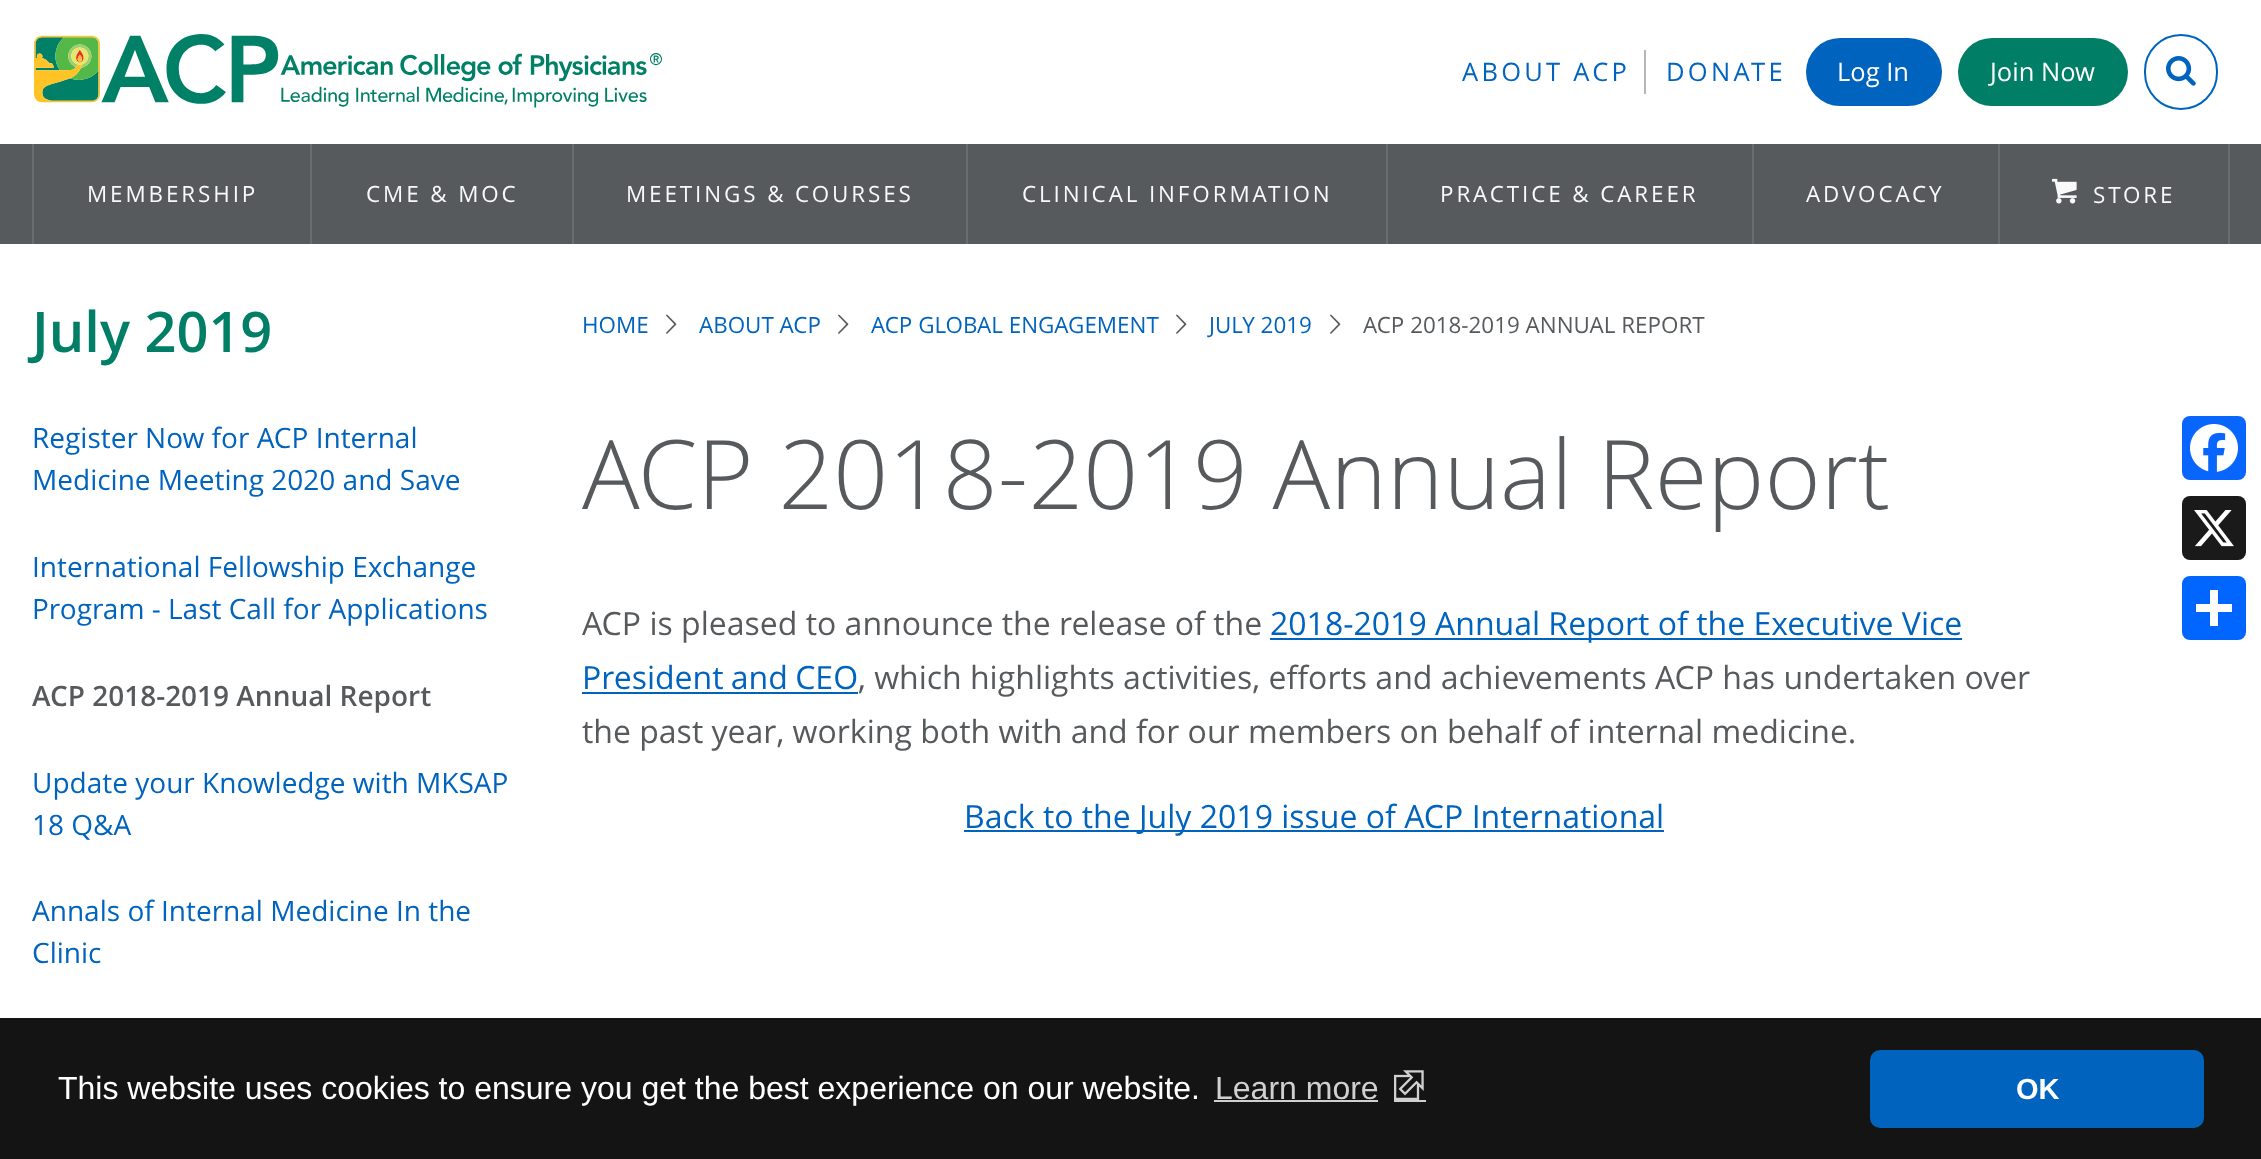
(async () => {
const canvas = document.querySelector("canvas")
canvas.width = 2261
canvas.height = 1159
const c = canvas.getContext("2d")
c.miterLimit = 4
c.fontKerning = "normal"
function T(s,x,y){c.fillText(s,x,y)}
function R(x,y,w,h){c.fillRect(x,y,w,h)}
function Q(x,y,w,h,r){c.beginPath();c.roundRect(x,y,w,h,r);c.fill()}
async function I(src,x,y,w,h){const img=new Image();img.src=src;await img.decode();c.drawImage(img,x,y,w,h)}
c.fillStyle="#fff"
R(0,0,2261,1159)
await I("1.png",34,34,628,74)
c.fillStyle="#b5b7b4"
R(1644,50,2,44)
c.letterSpacing="3.25px"
c.font="25.5px Open Sans"
c.fillStyle="#0063be"
T("ABOUT ACP",1462,81)
T("DONATE",1666,81)
Q(1806,38,136,68,34)
c.letterSpacing="0px"
c.fillStyle="#fff"
T("Log In",1837,81)
c.fillStyle="#007e66"
Q(1958,38,170,68,34)
c.fillStyle="#fff"
T("Join Now",1990,81)
c.beginPath()
c.roundRect(2145,35,72,74,36)
c.strokeStyle="#0063be"
c.lineWidth=2
c.stroke()
await I("2.png",2166,56,30,30)
c.fillStyle="#575a5d"
R(0,144,2261,100)
c.fillStyle="#686e70"
R(310,144,2,100)
R(32,144,2,100)
c.letterSpacing="2.9px"
c.font="22.4px Open Sans"
c.fillStyle="#f9f9f9"
T("MEMBERSHIP",87,202)
c.fillStyle="#686e70"
R(572,144,2,100)
c.fillStyle="#f9f9f9"
T("CME & MOC",366,202)
c.fillStyle="#686e70"
R(966,144,2,100)
c.fillStyle="#f9f9f9"
T("MEETINGS & COURSES",626,202)
c.fillStyle="#686e70"
R(1386,144,2,100)
c.fillStyle="#f9f9f9"
T("CLINICAL INFORMATION",1022,202)
c.fillStyle="#686e70"
R(1752,144,2,100)
c.fillStyle="#f9f9f9"
T("PRACTICE & CAREER",1440,202)
c.fillStyle="#686e70"
R(1998,144,2,100)
c.fillStyle="#f9f9f9"
T("ADVOCACY",1806,202)
c.fillStyle="#686e70"
R(2228,144,2,100)
await I("3.png",2052,178,25,26)
c.fillStyle="#f9f9f9"
T("STORE",2093,203)
c.letterSpacing="0px"
c.font="600 56px Open Sans"
c.fillStyle="#007e66"
T("July 2019",32,352)
c.font="28px Open Sans"
c.fillStyle="#0063be"
T("Register Now for ACP Internal",32,448)
T("Medicine Meeting 2020 and Save",32,490)
T("International Fellowship Exchange",32,577)
T("Program - Last Call for Applications",32,619)
c.font="600 28px Open Sans"
c.fillStyle="#575a5d"
T("ACP 2018-2019 Annual Report",32,706)
c.font="28px Open Sans"
c.fillStyle="#0063be"
T("Update your Knowledge with MKSAP",32,793)
T("18 Q&A",32,835)
T("Annals of Internal Medicine In the",32,921)
T("Clinic",32,963)
c.font="22.4px Open Sans"
T("HOME",582,333)
await I("4.png",666,314,11,20)
T("ABOUT ACP",699,333)
await I("4.png",838,314,11,20)
T("ACP GLOBAL ENGAGEMENT",871,333)
await I("4.png",1176,314,11,20)
T("JULY 2019",1209,333)
await I("4.png",1330,314,11,20)
c.fillStyle="#575a5d"
T("ACP 2018-2019 ANNUAL REPORT",1363,333)
c.font="300 96px Open Sans"
T("ACP 2018-2019 Annual Report",582,509)
c.fillStyle="#0866ff"
Q(2182,416,64,64,8)
await I("5.png",2190,424,48,48)
c.fillStyle="#1a1a1a"
Q(2182,496,64,64,8)
await I("6.png",2194,510,40,37)
c.fillStyle="#0166ff"
Q(2182,576,64,64,8)
c.fillStyle="#fff"
R(2210,590,8,36)
R(2196,604,36,8)
c.font="32px Open Sans"
c.fillStyle="#575a5d"
T("ACP is pleased to announce the release of the",582,635)
c.fillStyle="#0063be"
R(1270,638,692,2)
T("2018-2019 Annual Report of the Executive Vice",1270,635)
c.wordSpacing="-1px"
T("President and CEO",582,689)
R(582,692,276,2)
c.wordSpacing="0px"
c.fillStyle="#575a5d"
T(", which highlights activities, efforts and achievements ACP has undertaken over",858,689)
T("the past year, working both with and for our members on behalf of internal medicine.",582,743)
c.fillStyle="#0063be"
R(964,830,700,2)
T("Back to the July 2019 issue of ACP International",964,828)
c.fillStyle="#141414"
R(0,1018,2261,141)
c.font="32px Liberation Sans"
c.fillStyle="#fff"
T("This website uses cookies to ensure you get the best experience on our website.",58,1099)
c.fillStyle="#d0d0d0"
T("Learn more",1215,1099)
R(1214,1100,164,2)
await I("7.png",1394,1070,30,30)
R(1394,1100,32,2)
c.fillStyle="#0063be"
Q(1870,1050,334,78,10)
c.font="bold 29px Liberation Sans"
c.fillStyle="#fff"
T("OK",2016,1099)
})()
